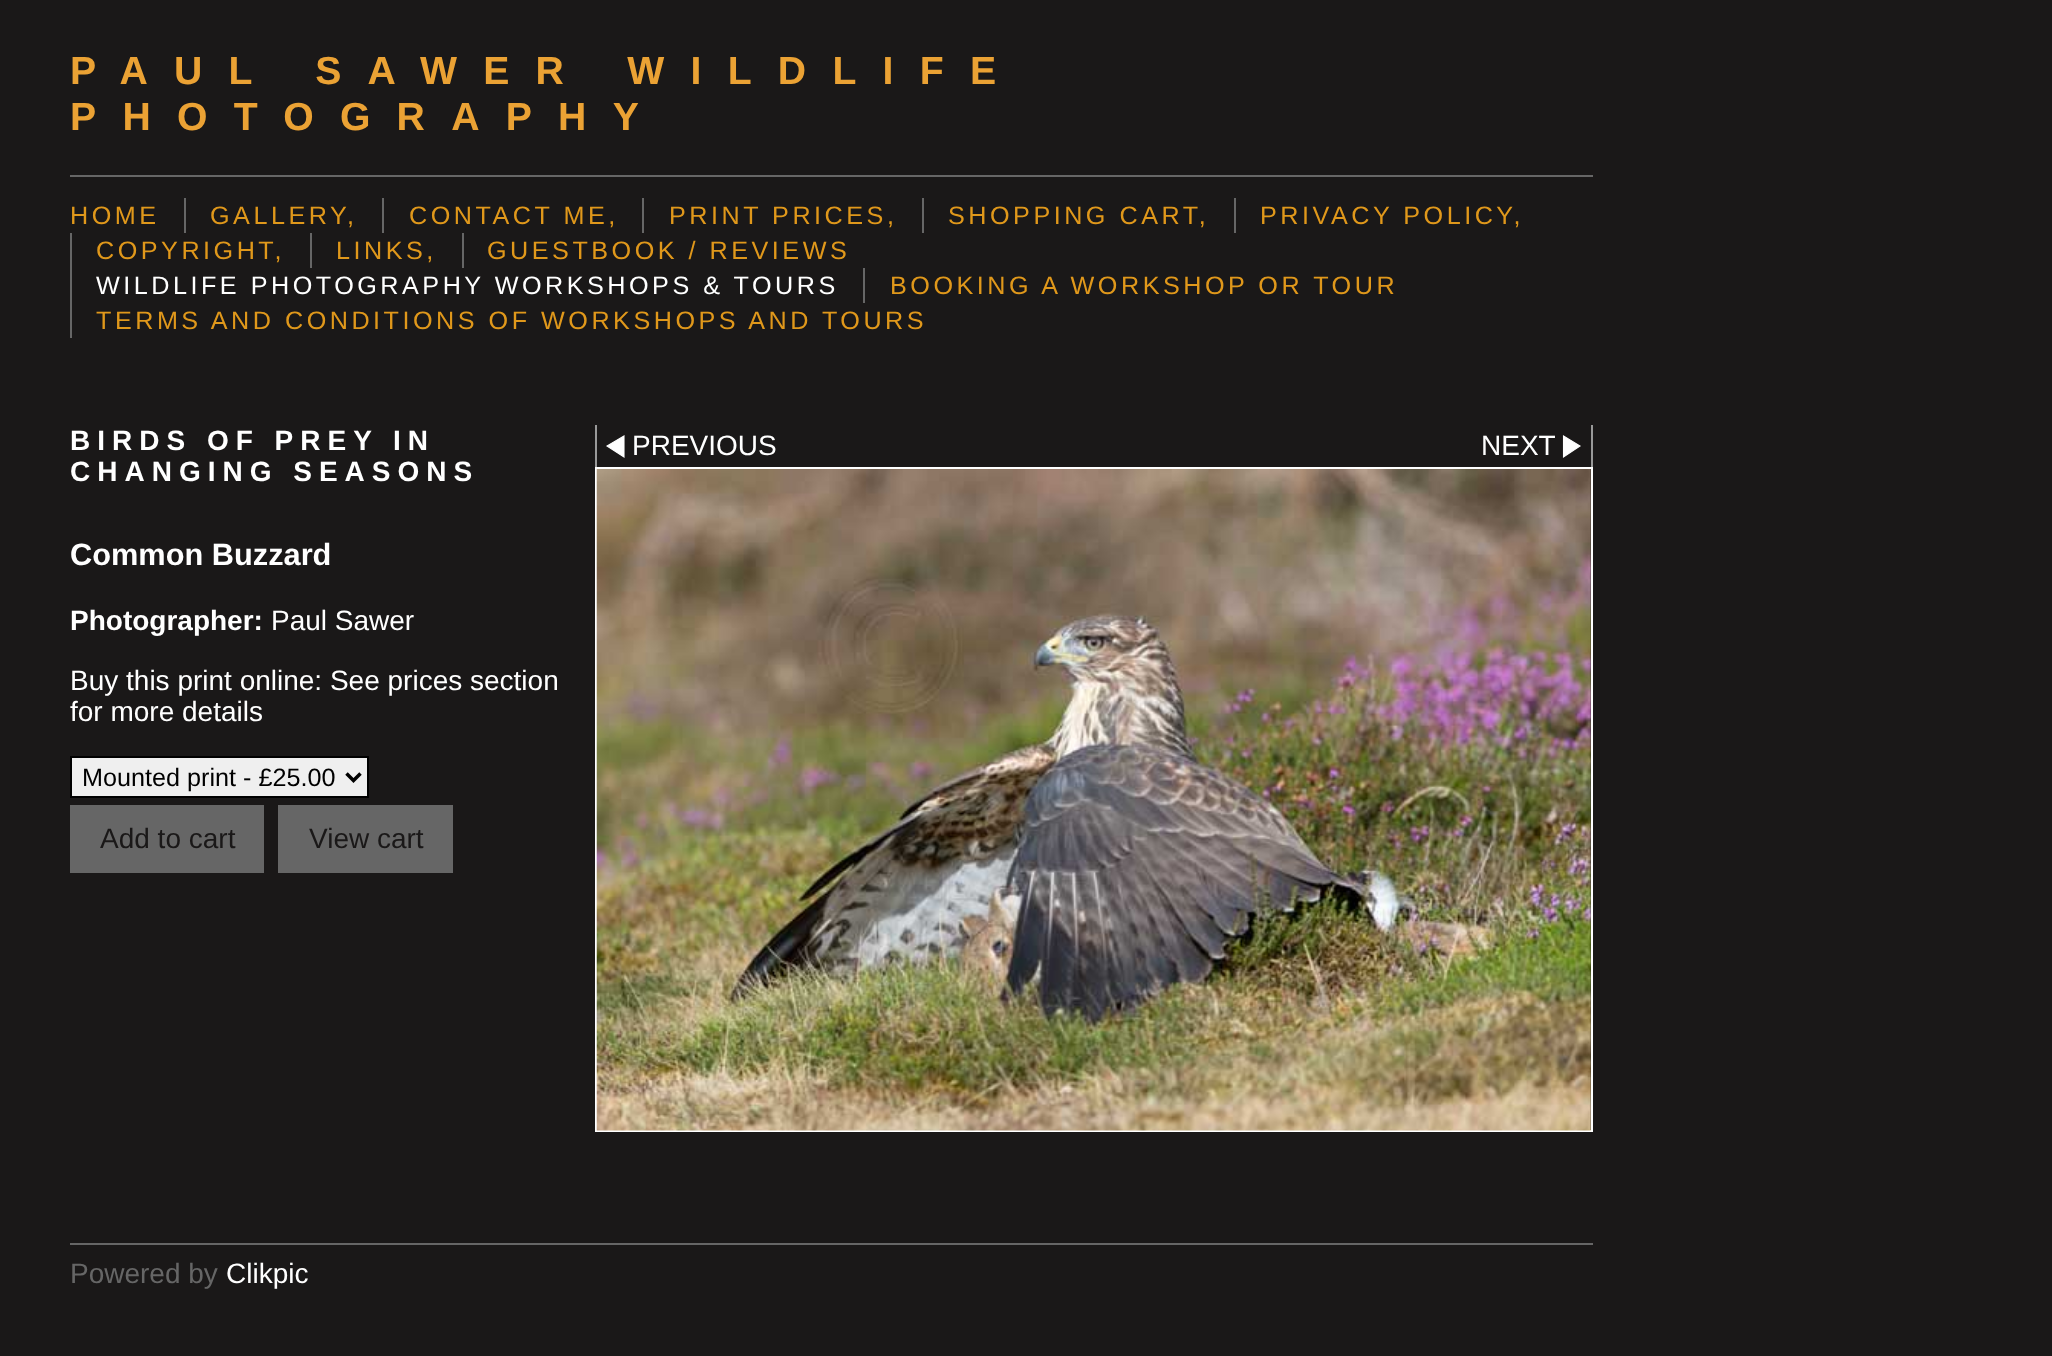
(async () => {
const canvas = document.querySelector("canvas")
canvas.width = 2052
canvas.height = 1356
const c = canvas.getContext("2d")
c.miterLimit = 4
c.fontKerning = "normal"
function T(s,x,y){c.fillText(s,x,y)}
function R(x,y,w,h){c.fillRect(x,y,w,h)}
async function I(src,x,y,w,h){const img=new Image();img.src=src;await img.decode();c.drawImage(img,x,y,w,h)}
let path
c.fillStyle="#1a1818"
R(0,0,2052,1356)
c.fillStyle="#666"
R(70,175,1523,2)
c.letterSpacing="26.25px"
c.font="bold 39.2px Liberation Sans"
c.fillStyle="#eba234"
T("PAUL SAWER WILDLIFE",70,84)
T("PHOTOGRAPHY",70,130)
c.letterSpacing="3.5px"
c.font="25.2px Liberation Sans"
c.fillStyle="#e0981b"
T("HOME",70,224)
c.fillStyle="#666"
R(184,198,2,35)
c.fillStyle="#e0981b"
T("GALLERY,",210,224)
c.fillStyle="#666"
R(382,198,2,35)
c.fillStyle="#e0981b"
T("CONTACT ME,",409,224)
c.fillStyle="#666"
R(642,198,2,35)
c.fillStyle="#e0981b"
T("PRINT PRICES,",669,224)
c.fillStyle="#666"
R(922,198,2,35)
c.fillStyle="#e0981b"
T("SHOPPING CART,",948,224)
c.fillStyle="#666"
R(1234,198,2,35)
c.fillStyle="#e0981b"
T("PRIVACY POLICY,",1260,224)
c.fillStyle="#666"
R(70,233,2,105)
c.fillStyle="#e0981b"
T("COPYRIGHT,",96,259)
c.fillStyle="#666"
R(310,233,2,35)
c.fillStyle="#e0981b"
T("LINKS,",336,259)
c.fillStyle="#666"
R(462,233,2,35)
c.fillStyle="#e0981b"
T("GUESTBOOK / REVIEWS",487,259)
c.fillStyle="#fff"
T("WILDLIFE PHOTOGRAPHY WORKSHOPS & TOURS",96,294)
c.fillStyle="#666"
R(863,268,2,35)
c.fillStyle="#e0981b"
T("BOOKING A WORKSHOP OR TOUR",890,294)
T("TERMS AND CONDITIONS OF WORKSHOPS AND TOURS",96,329)
c.letterSpacing="7px"
c.font="bold 28px Liberation Sans"
c.fillStyle="#fff"
T("BIRDS OF PREY IN",70,450)
T("CHANGING SEASONS",70,481)
c.letterSpacing="0px"
c.font="bold 30.75px Liberation Sans"
T("Common Buzzard",70,565)
c.font="bold 28px Liberation Sans"
T("Photographer:",70,630)
c.font="28px Liberation Sans"
T("Paul Sawer",271,630)
T("Buy this print online: See prices section",70,690)
T("for more details",70,721)
c.fillStyle="#efefef"
c.beginPath()
c.rect(71,757,297,40)
c.fill()
c.strokeStyle="#000"
c.lineWidth=2
c.stroke()
path = new Path2D("M346.5 773.5l7 7l7-7")
c.lineWidth=3.5
c.stroke(path)
c.font="25.2px Liberation Sans"
c.fillStyle="#000"
T("Mounted print - £25.00",82,786)
c.fillStyle="#666"
R(70,805,194,68)
c.font="28px Liberation Sans"
c.fillStyle="#1a1818"
T("Add to cart",100,848)
c.fillStyle="#666"
R(278,805,175,68)
c.fillStyle="#1a1818"
T("View cart",309,848)
c.fillStyle="#999"
R(595,425,2,42)
c.fillStyle="#fff"
path = new Path2D("M624 436v21l-17-11z")
c.fill(path)
c.strokeStyle="#fff"
c.lineWidth=1.1
c.stroke(path)
T("PREVIOUS",632,455)
c.fillStyle="#999"
R(1591,425,2,42)
c.fillStyle="#fff"
T("NEXT",1481,455)
path = new Path2D("M1563.5 436v21l16.5-11z")
c.fill(path)
c.stroke(path)
c.lineWidth=2
c.strokeRect(596,468,996,663)
await I("1.png",596,469,995,662)
c.fillStyle="#666"
R(70,1243,1523,2)
T("Powered by",70,1283)
c.fillStyle="#fff"
T("Clikpic",226,1283)
})()
